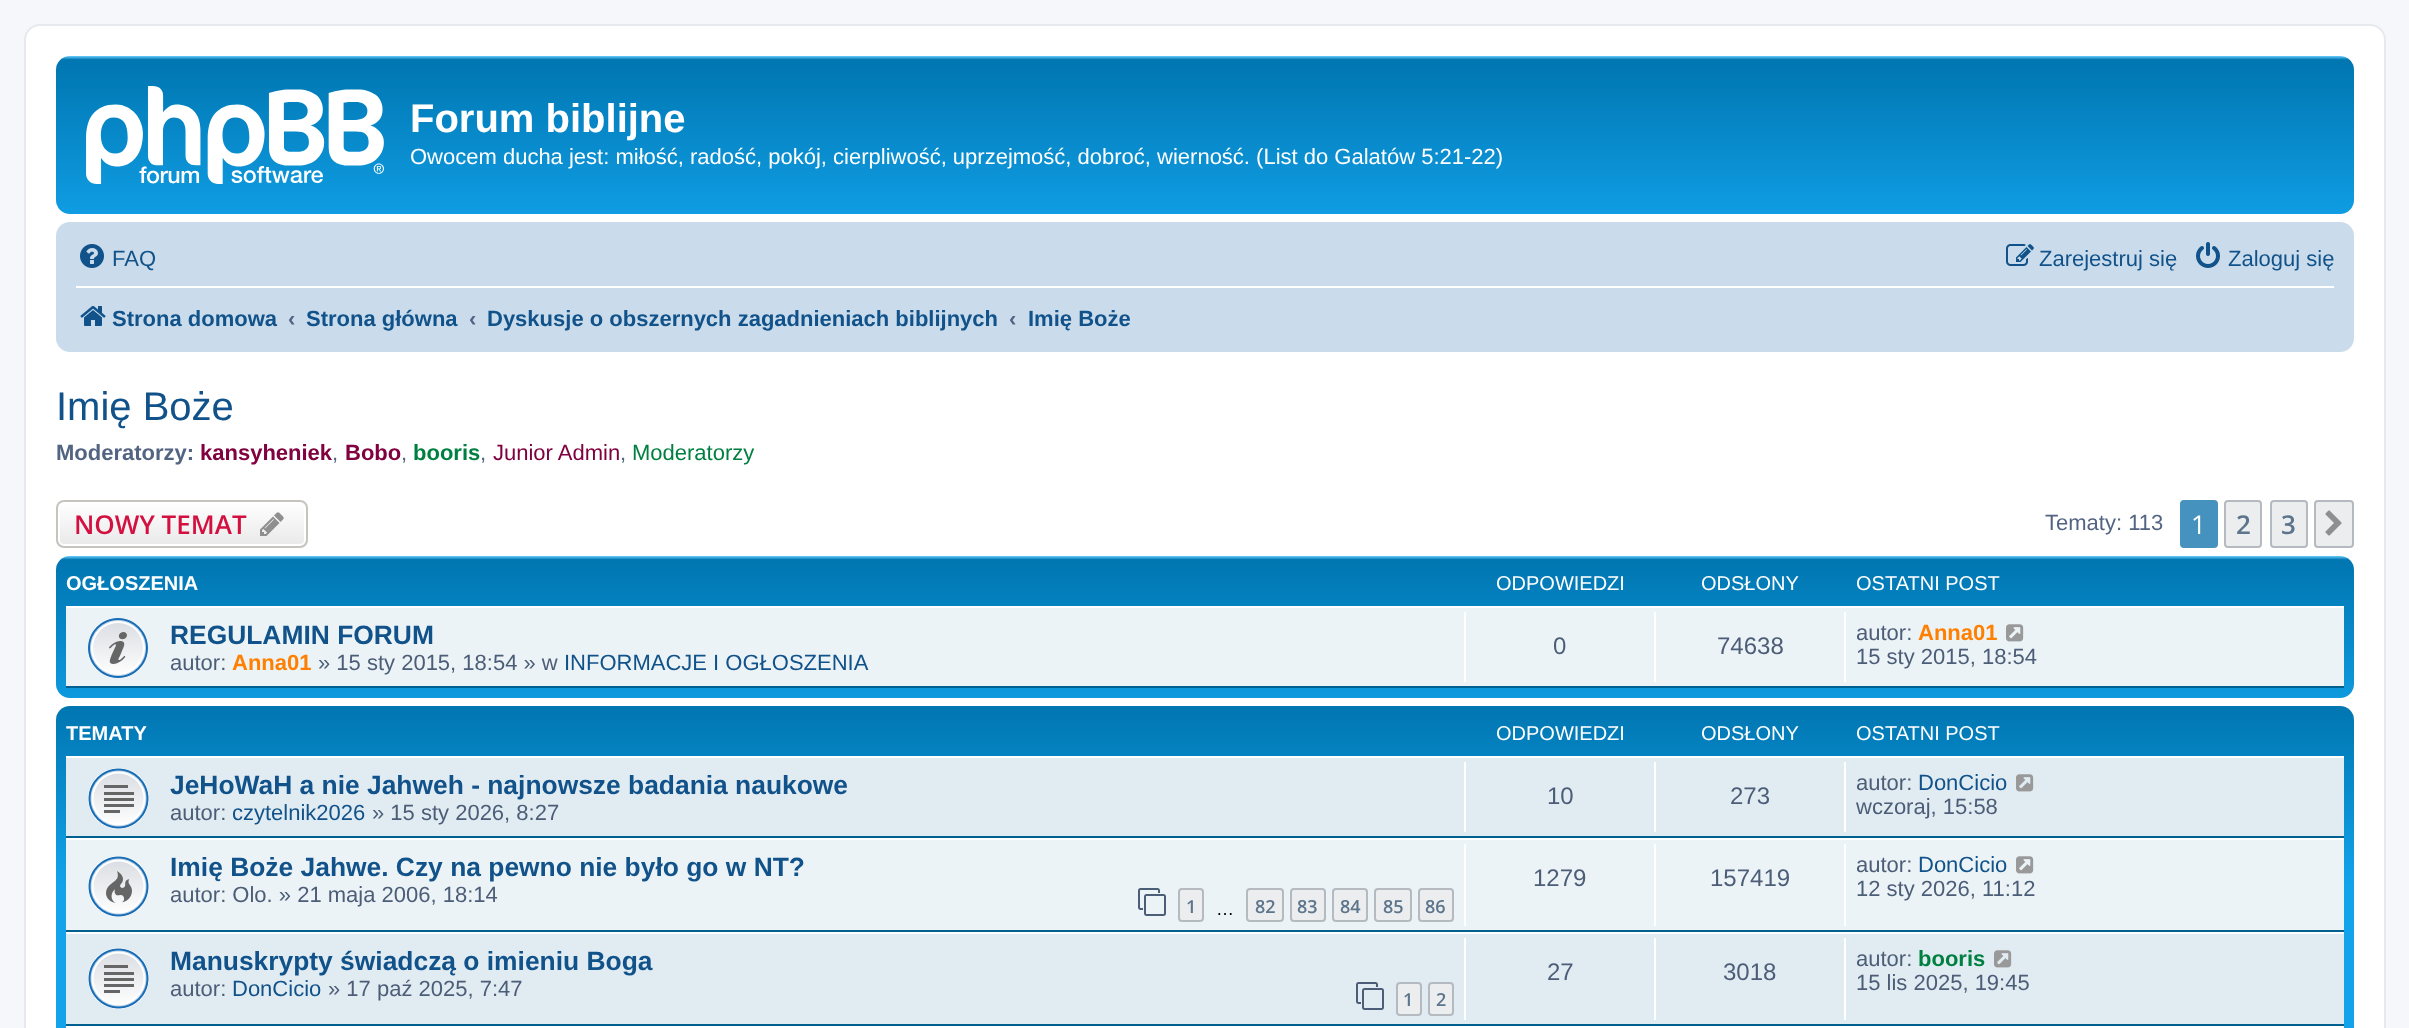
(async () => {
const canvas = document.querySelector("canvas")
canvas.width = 2409
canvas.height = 1028
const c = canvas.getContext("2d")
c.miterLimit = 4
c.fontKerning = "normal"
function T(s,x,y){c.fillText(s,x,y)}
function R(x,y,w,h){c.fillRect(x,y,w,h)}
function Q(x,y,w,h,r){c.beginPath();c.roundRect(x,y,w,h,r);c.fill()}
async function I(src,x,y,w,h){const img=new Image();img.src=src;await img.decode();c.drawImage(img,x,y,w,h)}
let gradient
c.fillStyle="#f5f7fa"
R(0,0,2409,1028)
c.fillStyle="#fff"
c.beginPath()
c.roundRect(25,25,2360,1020,15)
c.fill()
c.strokeStyle="#e6e9ed"
c.lineWidth=2
c.stroke()
gradient = c.createLinearGradient(1205,56,1205,240)
gradient.addColorStop(0,"#6aceff")
gradient.addColorStop(.02,"#0076b1")
gradient.addColorStop(1,"#12a3eb")
c.fillStyle = gradient
Q(56,56,2298,158,14)
await I("1.png",86,86,298,98)
c.font="bold 40px Liberation Sans"
c.fillStyle="#fff"
T("Forum biblijne",410,132)
c.font="22px Liberation Sans"
T("Owocem ducha jest: miłość, radość, pokój, cierpliwość, uprzejmość, dobroć, wierność. (List do Galatów 5:21-22)",410,164)
c.fillStyle="#cadceb"
Q(56,222,2298,130,14)
await I("2.png",80,244,24,24)
c.fillStyle="#105289"
T("FAQ",112,266)
await I("3.png",2006,244,28,22)
T("Zarejestruj się",2039,266)
await I("4.png",2196,242,24,26)
T("Zaloguj się",2228,266)
c.fillStyle="#fff"
R(76,286,2258,2)
await I("5.png",80,306,26,20)
c.font="bold 22px Liberation Sans"
c.fillStyle="#105289"
T("Strona domowa",112,326)
c.fillStyle="#536482"
T("‹",288,326)
c.fillStyle="#105289"
T("Strona główna",306,326)
c.fillStyle="#536482"
T("‹",469,326)
c.fillStyle="#105289"
T("Dyskusje o obszernych zagadnieniach biblijnych",487,326)
c.fillStyle="#536482"
T("‹",1009,326)
c.fillStyle="#105289"
T("Imię Boże",1028,326)
c.font="40px Liberation Sans"
T("Imię Boże",56,420)
c.font="bold 22px Liberation Sans"
c.fillStyle="#536482"
T("Moderatorzy:",56,460)
c.fillStyle="#800040"
T("kansyheniek",200,460)
c.font="22px Liberation Sans"
c.fillStyle="#536482"
T(",",332,460)
c.font="bold 22px Liberation Sans"
c.fillStyle="#800040"
T("Bobo",345,460)
c.font="22px Liberation Sans"
c.fillStyle="#536482"
T(",",401,460)
c.font="bold 22px Liberation Sans"
c.fillStyle="#008040"
T("booris",413,460)
c.font="22px Liberation Sans"
c.fillStyle="#536482"
T(",",480,460)
c.fillStyle="#800040"
T("Junior Admin",493,460)
c.fillStyle="#536482"
T(",",620,460)
c.fillStyle="#008040"
T("Moderatorzy",632,460)
c.save()
c.beginPath()
c.roundRect(56,500,252,48,8)
c.clip()
gradient = c.createLinearGradient(182,502,182,546)
gradient.addColorStop(0,"#fff")
gradient.addColorStop(1,"#e9e9e9")
c.fillStyle = gradient
R(56,502,252,44)
c.restore()
c.beginPath()
c.roundRect(59,503,246,42,5)
c.strokeStyle="#fff"
c.stroke()
c.beginPath()
c.roundRect(57,501,250,46,7)
c.strokeStyle="#c7c3bf"
c.stroke()
c.font="600 26px Open Sans"
c.fillStyle="#d31141"
T("NOWY TEMAT",74,534)
await I("6.png",260,512,24,24)
c.font="22px Liberation Sans"
c.fillStyle="#536482"
T("Tematy: 113",2045,530)
c.fillStyle="#4692bf"
c.beginPath()
c.roundRect(2181,501,36,46,3)
c.fill()
c.strokeStyle="#4692bf"
c.stroke()
c.font="26px Open Sans"
c.fillStyle="#fff"
T("1",2191,534)
c.fillStyle="#ecedee"
c.beginPath()
c.roundRect(2225,501,36,46,3)
c.fill()
c.strokeStyle="#b4bac0"
c.stroke()
c.font="600 26px Open Sans"
c.fillStyle="#5c758c"
T("2",2236,534)
c.fillStyle="#ecedee"
c.beginPath()
c.roundRect(2271,501,36,46,3)
c.fill()
c.stroke()
c.fillStyle="#5c758c"
T("3",2281,534)
c.fillStyle="#ecedee"
c.beginPath()
c.roundRect(2315,501,38,46,3)
c.fill()
c.stroke()
await I("7.png",2325,510,17,26)
gradient = c.createLinearGradient(1205,556,1205,740)
gradient.addColorStop(0,"#6aceff")
gradient.addColorStop(.02,"#0076b1")
gradient.addColorStop(1,"#12a3eb")
c.fillStyle = gradient
Q(56,556,2298,142,14)
c.font="bold 20px Liberation Sans"
c.fillStyle="#fff"
T("OGŁOSZENIA",66,590)
c.font="20px Liberation Sans"
T("ODPOWIEDZI",1496,590)
T("ODSŁONY",1701,590)
T("OSTATNI POST",1856,590)
c.fillStyle="#ecf3f7"
R(66,608,2278,78)
c.fillStyle="#fff"
R(66,606,2278,2)
c.fillStyle="#00608f"
R(66,686,2278,2)
await I("8.png",88,618,60,60)
c.font="bold 26.4px Liberation Sans"
c.fillStyle="#105289"
T("REGULAMIN FORUM",170,644)
c.font="22px Liberation Sans"
c.fillStyle="#4c5d77"
T("autor:",170,670)
c.font="bold 22px Liberation Sans"
c.fillStyle="#ff8000"
T("Anna01",232,670)
c.font="22px Liberation Sans"
c.fillStyle="#4c5d77"
T("» 15 sty 2015, 18:54 » w",318,670)
c.fillStyle="#105289"
T("INFORMACJE I OGŁOSZENIA",564,670)
c.fillStyle="#fff"
R(1464,612,2,70)
c.font="24px Liberation Sans"
c.fillStyle="#4c5d77"
T("0",1553,654)
c.fillStyle="#fff"
R(1654,612,2,70)
c.fillStyle="#4c5d77"
T("74638",1717,654)
c.fillStyle="#fff"
R(1844,612,2,70)
c.font="22px Liberation Sans"
c.fillStyle="#4c5d77"
T("autor:",1856,640)
c.font="bold 22px Liberation Sans"
c.fillStyle="#ff8000"
T("Anna01",1918,640)
await I("9.png",2006,624,18,18)
c.font="22px Liberation Sans"
c.fillStyle="#4c5d77"
T("15 sty 2015, 18:54",1856,664)
gradient = c.createLinearGradient(1205,706,1205,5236)
gradient.addColorStop(0,"#6aceff")
gradient.addColorStop(0,"#0076b1")
gradient.addColorStop(.04,"#12a3eb")
gradient.addColorStop(1,"#12a3eb")
c.fillStyle = gradient
Q(56,706,2298,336,14)
c.font="bold 20px Liberation Sans"
c.fillStyle="#fff"
T("TEMATY",66,740)
c.font="20px Liberation Sans"
T("ODPOWIEDZI",1496,740)
T("ODSŁONY",1701,740)
T("OSTATNI POST",1856,740)
c.fillStyle="#e1ebf2"
R(66,758,2278,78)
c.fillStyle="#fff"
R(66,756,2278,2)
c.fillStyle="#00608f"
R(66,836,2278,2)
await I("10.png",88,768,61,61)
c.font="bold 26.4px Liberation Sans"
c.fillStyle="#105289"
T("JeHoWaH a nie Jahweh - najnowsze badania naukowe",170,794)
c.font="22px Liberation Sans"
c.fillStyle="#4c5d77"
T("autor:",170,820)
c.fillStyle="#105289"
T("czytelnik2026",232,820)
c.fillStyle="#4c5d77"
T("» 15 sty 2026, 8:27",372,820)
c.fillStyle="#fff"
R(1464,762,2,70)
c.font="24px Liberation Sans"
c.fillStyle="#4c5d77"
T("10",1547,804)
c.fillStyle="#fff"
R(1654,762,2,70)
c.fillStyle="#4c5d77"
T("273",1730,804)
c.fillStyle="#fff"
R(1844,762,2,70)
c.font="22px Liberation Sans"
c.fillStyle="#4c5d77"
T("autor:",1856,790)
c.fillStyle="#105289"
T("DonCicio",1918,790)
await I("11.png",2016,774,18,18)
c.fillStyle="#4c5d77"
T("wczoraj, 15:58",1856,814)
c.fillStyle="#ecf3f7"
R(66,840,2278,90)
c.fillStyle="#fff"
R(66,838,2278,2)
c.fillStyle="#00608f"
R(66,930,2278,2)
await I("12.png",88,856,61,61)
c.font="bold 26.4px Liberation Sans"
c.fillStyle="#105289"
T("Imię Boże Jahwe. Czy na pewno nie było go w NT?",170,876)
c.font="22px Liberation Sans"
c.fillStyle="#4c5d77"
T("autor: Olo. » 21 maja 2006, 18:14",170,902)
await I("13.png",1138,888,28,28)
c.fillStyle="#ecedee"
c.beginPath()
c.roundRect(1179,889,24,32,3)
c.fill()
c.stroke()
c.font="600 18px Open Sans"
c.fillStyle="#5c758c"
T("1",1186,913)
c.font="18px Liberation Sans"
c.fillStyle="#000"
T("…",1216,915)
c.fillStyle="#ecedee"
c.beginPath()
c.roundRect(1247,889,36,32,3)
c.fill()
c.stroke()
c.font="600 18px Open Sans"
c.fillStyle="#5c758c"
T("82",1255,913)
c.fillStyle="#ecedee"
c.beginPath()
c.roundRect(1291,889,34,32,3)
c.fill()
c.stroke()
c.fillStyle="#5c758c"
T("83",1297,913)
c.fillStyle="#ecedee"
c.beginPath()
c.roundRect(1333,889,34,32,3)
c.fill()
c.stroke()
c.fillStyle="#5c758c"
T("84",1340,913)
c.fillStyle="#ecedee"
c.beginPath()
c.roundRect(1375,889,36,32,3)
c.fill()
c.stroke()
c.fillStyle="#5c758c"
T("85",1383,913)
c.fillStyle="#ecedee"
c.beginPath()
c.roundRect(1419,889,34,32,3)
c.fill()
c.stroke()
c.fillStyle="#5c758c"
T("86",1425,913)
c.fillStyle="#fff"
R(1464,844,2,82)
c.font="24px Liberation Sans"
c.fillStyle="#4c5d77"
T("1279",1533,886)
c.fillStyle="#fff"
R(1654,844,2,82)
c.fillStyle="#4c5d77"
T("157419",1710,886)
c.fillStyle="#fff"
R(1844,844,2,82)
c.font="22px Liberation Sans"
c.fillStyle="#4c5d77"
T("autor:",1856,872)
c.fillStyle="#105289"
T("DonCicio",1918,872)
await I("9.png",2016,856,18,18)
c.fillStyle="#4c5d77"
T("12 sty 2026, 11:12",1856,896)
c.fillStyle="#e1ebf2"
R(66,934,2278,90)
c.fillStyle="#fff"
R(66,932,2278,2)
c.fillStyle="#00608f"
R(66,1024,2278,2)
await I("10.png",88,948,61,61)
c.font="bold 26.4px Liberation Sans"
c.fillStyle="#105289"
T("Manuskrypty świadczą o imieniu Boga",170,970)
c.font="22px Liberation Sans"
c.fillStyle="#4c5d77"
T("autor:",170,996)
c.fillStyle="#105289"
T("DonCicio",232,996)
c.fillStyle="#4c5d77"
T("» 17 paź 2025, 7:47",328,996)
await I("14.png",1356,982,28,28)
c.fillStyle="#ecedee"
c.beginPath()
c.roundRect(1397,983,24,32,3)
c.fill()
c.stroke()
c.font="600 18px Open Sans"
c.fillStyle="#5c758c"
T("1",1403,1006)
c.fillStyle="#ecedee"
c.beginPath()
c.roundRect(1429,983,24,32,3)
c.fill()
c.stroke()
c.fillStyle="#5c758c"
T("2",1436,1006)
c.fillStyle="#fff"
R(1464,938,2,82)
c.font="24px Liberation Sans"
c.fillStyle="#4c5d77"
T("27",1547,980)
c.fillStyle="#fff"
R(1654,938,2,82)
c.fillStyle="#4c5d77"
T("3018",1723,980)
c.fillStyle="#fff"
R(1844,938,2,82)
c.font="22px Liberation Sans"
c.fillStyle="#4c5d77"
T("autor:",1856,966)
c.font="bold 22px Liberation Sans"
c.fillStyle="#008040"
T("booris",1918,966)
await I("11.png",1994,950,18,18)
c.font="22px Liberation Sans"
c.fillStyle="#4c5d77"
T("15 lis 2025, 19:45",1856,990)
c.fillStyle="#fff"
R(66,1026,2278,2)
})()
